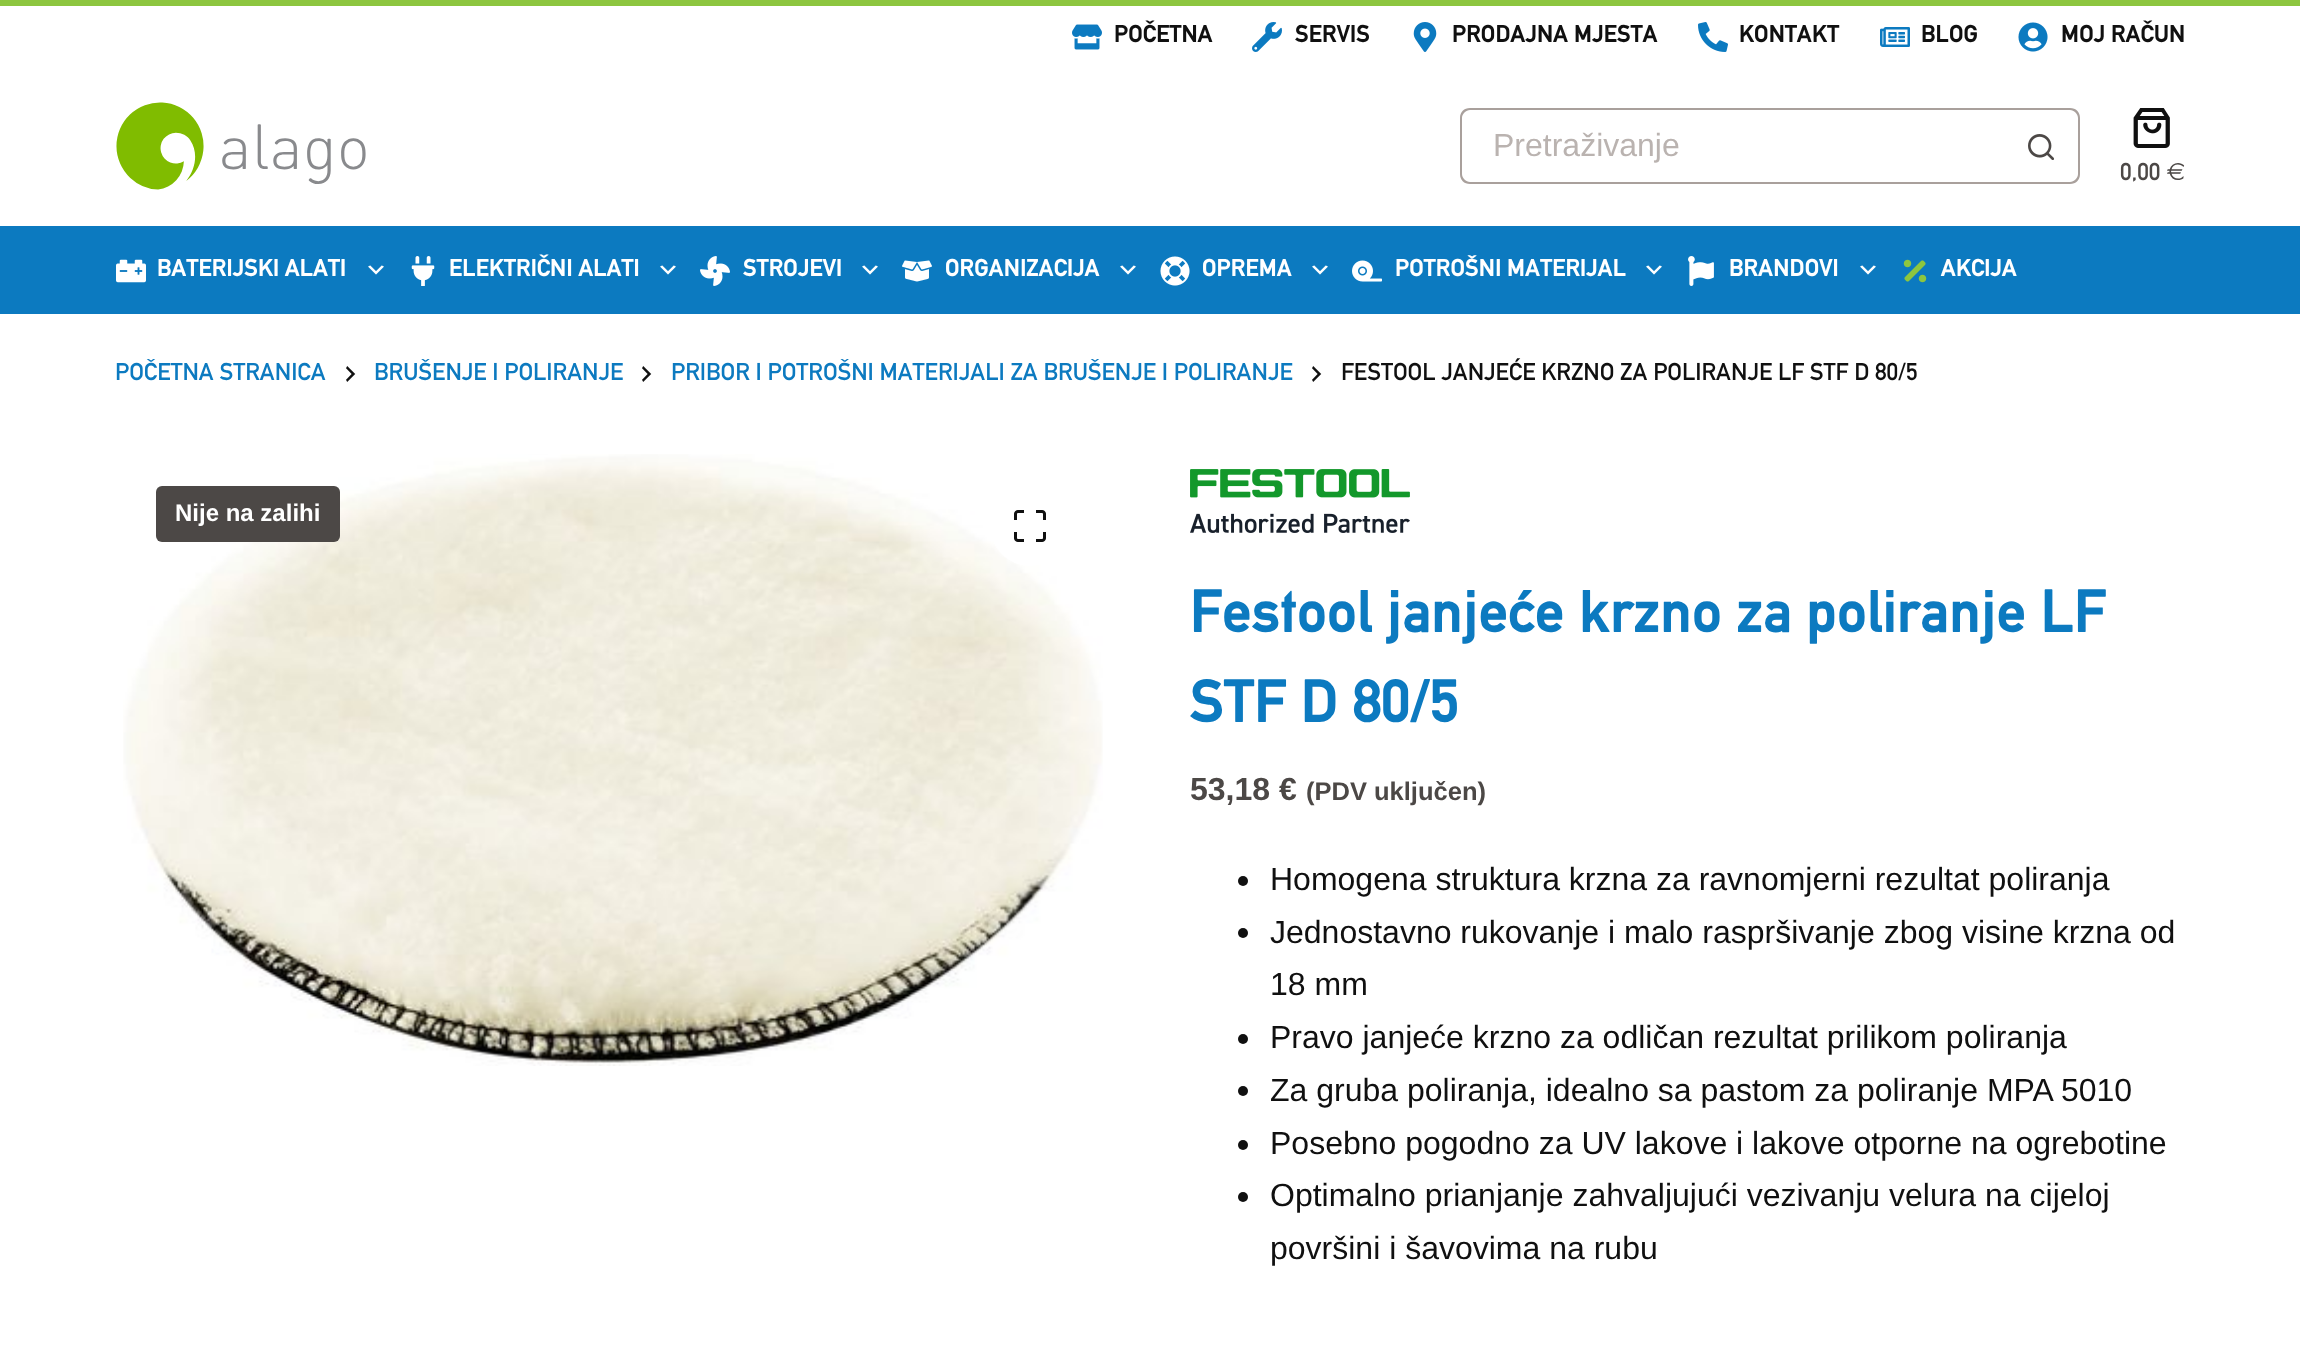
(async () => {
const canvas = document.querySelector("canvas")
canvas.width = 2300
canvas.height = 1347
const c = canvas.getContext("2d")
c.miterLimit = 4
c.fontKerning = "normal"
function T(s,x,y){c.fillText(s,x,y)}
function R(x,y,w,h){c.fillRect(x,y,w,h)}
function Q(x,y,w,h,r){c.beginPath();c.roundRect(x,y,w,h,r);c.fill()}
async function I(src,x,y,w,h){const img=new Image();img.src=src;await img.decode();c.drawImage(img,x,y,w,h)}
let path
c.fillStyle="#fff"
R(0,0,2300,1347)
c.fillStyle="#8dc63f"
R(0,0,2300,6)
await I("1.png",1072,24,30,26)
c.font="bold 24px 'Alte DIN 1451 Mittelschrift'"
c.fillStyle="#101010"
T("POČETNA",1114,42)
await I("2.png",1252,22,30,30)
T("SERVIS",1295,42)
await I("3.png",1413,22,24,30)
T("PRODAJNA MJESTA",1452,42)
await I("4.png",1698,22,30,30)
T("KONTAKT",1739,42)
await I("5.png",1880,27,30,20)
T("BLOG",1921,42)
await I("6.png",2018,22,30,30)
T("MOJ RAČUN",2061,42)
await I("7.png",116,102,250,88)
c.fillStyle="#a9a09c"
path = new Path2D("M1470 108h534v76h-534c-6 0-10-4-10-10v-56c0-6 4-10 10-10zm0 2h534v72h-534c-4 0-8-4-8-8v-56c0-4 4-8 8-8z")
c.fill(path,"evenodd")
c.font="32px Liberation Sans"
c.fillStyle="#bab3b0"
T("Pretraživanje",1493,156)
c.fillStyle="#a9a09c"
path = new Path2D("M2004 108h66c6 0 10 4 10 10v56c0 6-4 10-10 10h-66zm0 2h66c4 0 8 4 8 8v56c0 4-4 8-8 8h-66z")
c.fill(path,"evenodd")
await I("8.png",2028,134,26,26)
await I("9.png",2133,108,37,40)
c.font="24px 'Alte DIN 1451 Mittelschrift'"
c.fillStyle="#4c4846"
T("0,00 €",2120,180)
c.fillStyle="#0c7ac0"
R(0,226,2300,88)
await I("10.png",116,259,30,24)
c.font="bold 24px 'Alte DIN 1451 Mittelschrift'"
c.fillStyle="#fff"
T("BATERIJSKI ALATI",157,276)
await I("11.png",368,265,16,10)
await I("12.png",411,256,24,30)
T("ELEKTRIČNI ALATI",449,276)
await I("11.png",660,265,16,10)
await I("13.png",700,256,30,30)
T("STROJEVI",743,276)
await I("11.png",862,265,16,10)
await I("14.png",902,260,30,22)
T("ORGANIZACIJA",945,276)
await I("11.png",1120,265,16,10)
await I("15.png",1160,256,30,30)
T("OPREMA",1202,276)
await I("11.png",1312,265,16,10)
await I("16.png",1352,260,30,22)
T("POTROŠNI MATERIJAL",1395,276)
await I("11.png",1646,265,16,10)
await I("17.png",1688,256,26,30)
T("BRANDOVI",1729,276)
await I("11.png",1860,265,16,10)
await I("18.png",1903,259,24,24)
T("AKCIJA",1941,276)
c.font="24px 'Alte DIN 1451 Mittelschrift'"
c.fillStyle="#0c7ac0"
T("POČETNA STRANICA",115,380)
await I("19.png",346,366,10,16)
T("BRUŠENJE I POLIRANJE",374,380)
await I("19.png",642,366,10,16)
T("PRIBOR I POTROŠNI MATERIJALI ZA BRUŠENJE I POLIRANJE",671,380)
await I("19.png",1312,366,10,16)
c.fillStyle="#101010"
T("FESTOOL JANJEĆE KRZNO ZA POLIRANJE LF STF D 80/5",1341,380)
await I("20.png",123,454,980,612)
c.fillStyle="#4c4846"
Q(156,486,184,56,6)
c.font="bold 24px Liberation Sans"
c.fillStyle="#fff"
T("Nije na zalihi",175,521)
c.beginPath()
c.arc(1030,526,40,0,7)
c.fill()
await I("21.png",1014,510,32,32)
await I("22.png",1190,469,220,64)
c.font="bold 60px 'Alte DIN 1451 Mittelschrift'"
c.fillStyle="#0c7ac0"
T("Festool janjeće krzno za poliranje LF",1190,632)
T("STF D 80/5",1190,722)
c.font="bold 32px Liberation Sans"
c.fillStyle="#4c4846"
T("53,18 €",1190,800)
c.font="bold 25.5px Liberation Sans"
T("(PDV uključen)",1306,800)
c.fillStyle="#101010"
c.beginPath()
c.arc(1243,881,5,0,7)
c.fill()
c.font="32px Liberation Sans"
T("Homogena struktura krzna za ravnomjerni rezultat poliranja",1270,890)
c.beginPath()
c.arc(1243,933,5,0,7)
c.fill()
T("Jednostavno rukovanje i malo raspršivanje zbog visine krzna od",1270,943)
T("18 mm",1270,995)
c.beginPath()
c.arc(1243,1039,5,0,7)
c.fill()
T("Pravo janjeće krzno za odličan rezultat prilikom poliranja",1270,1048)
c.beginPath()
c.arc(1243,1091,5,0,7)
c.fill()
T("Za gruba poliranja, idealno sa pastom za poliranje MPA 5010",1270,1101)
c.beginPath()
c.arc(1243,1145,5,0,7)
c.fill()
T("Posebno pogodno za UV lakove i lakove otporne na ogrebotine",1270,1154)
c.beginPath()
c.arc(1243,1197,5,0,7)
c.fill()
T("Optimalno prianjanje zahvaljujući vezivanju velura na cijeloj",1270,1206)
T("površini i šavovima na rubu",1270,1259)
})()
